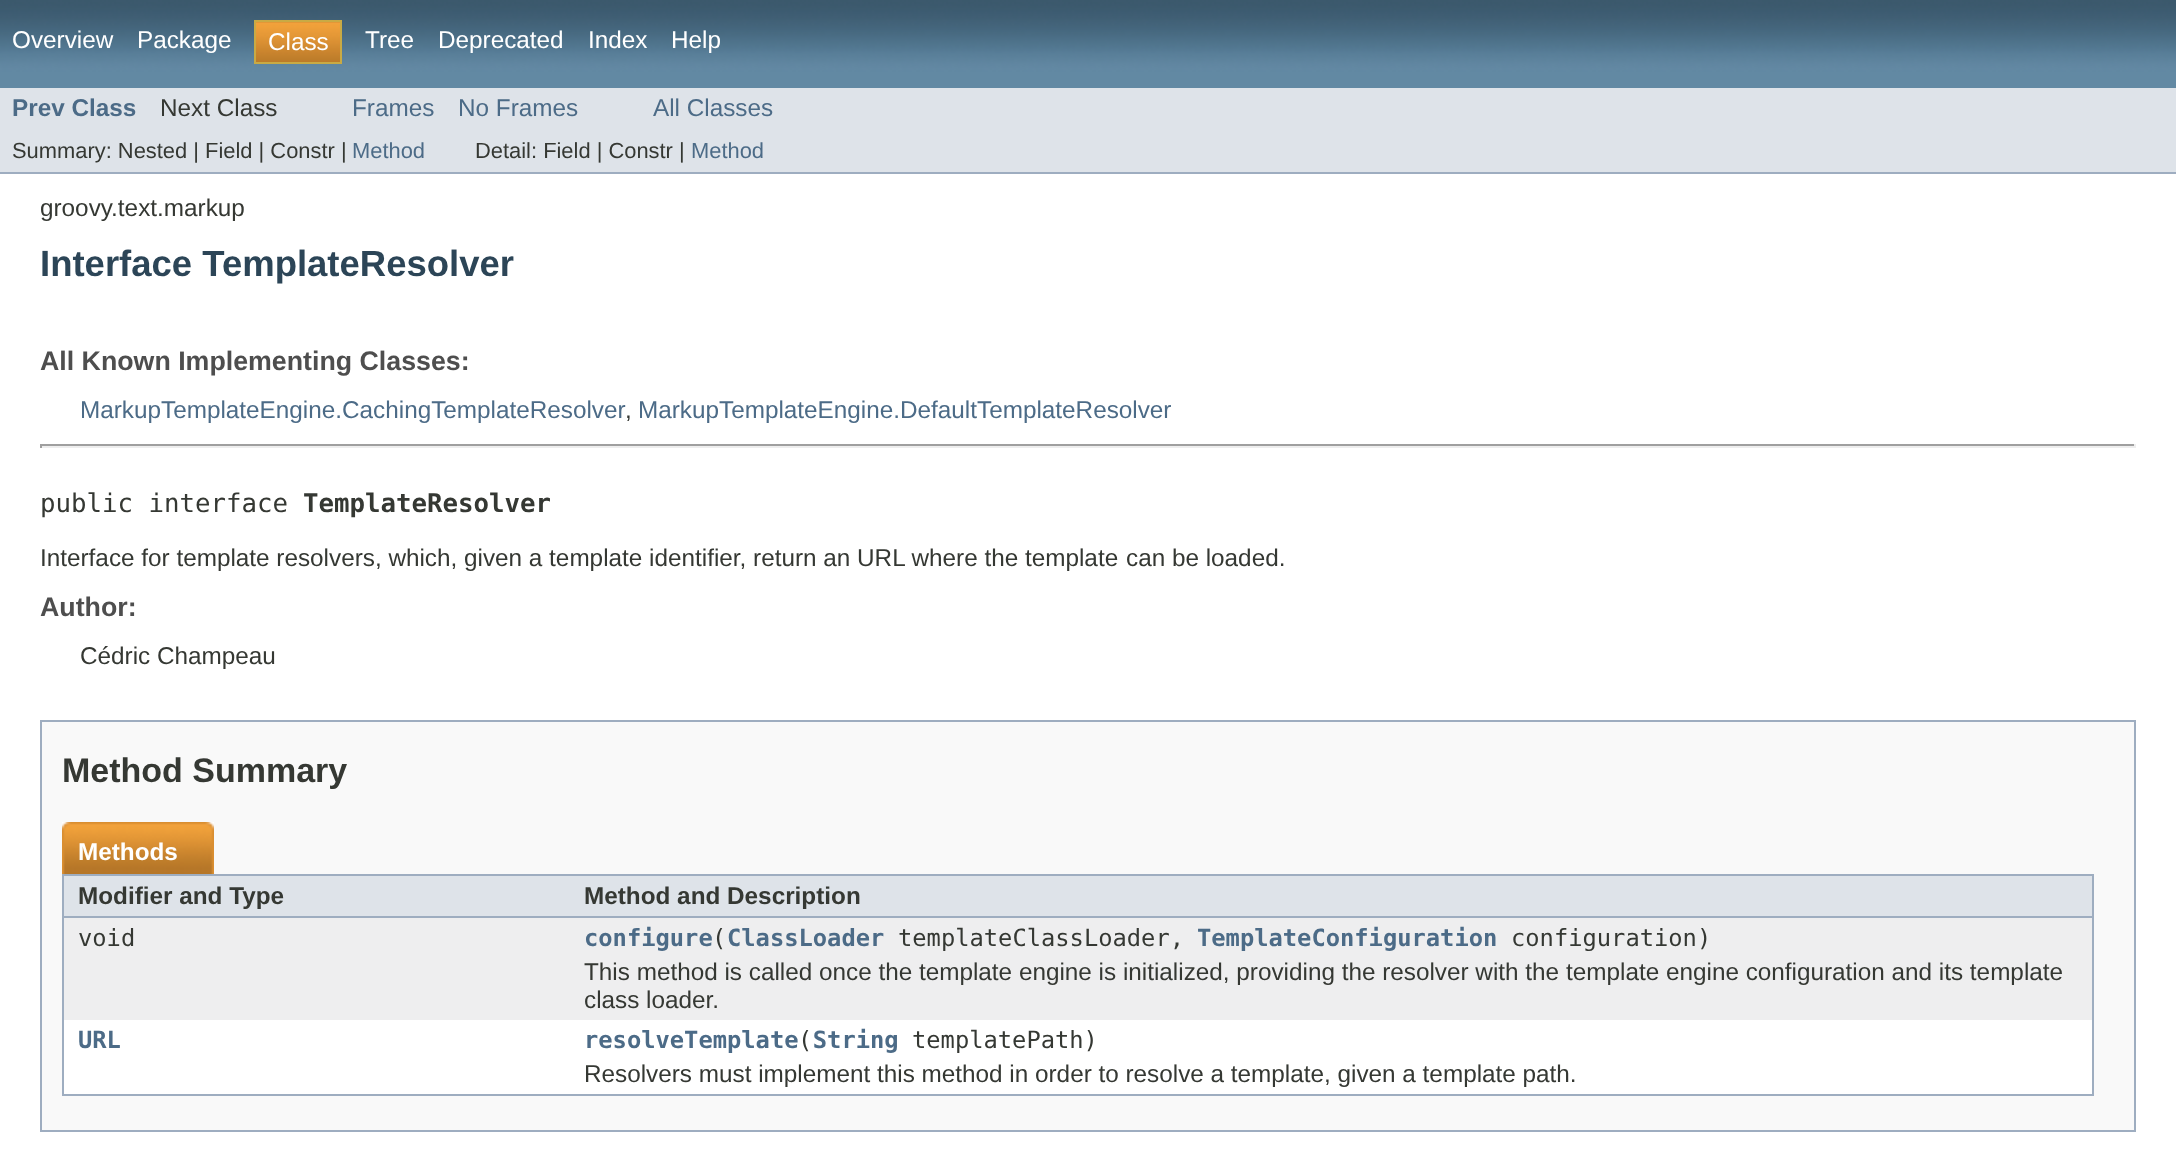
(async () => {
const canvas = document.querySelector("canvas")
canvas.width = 2176
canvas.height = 1175
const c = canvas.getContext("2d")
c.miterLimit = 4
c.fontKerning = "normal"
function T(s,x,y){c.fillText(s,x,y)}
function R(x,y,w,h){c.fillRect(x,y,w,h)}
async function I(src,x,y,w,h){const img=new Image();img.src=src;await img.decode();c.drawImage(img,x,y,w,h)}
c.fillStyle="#fff"
R(0,0,2176,1175)
await I("1.png",0,0,2176,88)
c.font="24.3px Liberation Sans"
T("Overview",12,48)
T("Package",137,48)
await I("2.png",256,22,84,40)
c.strokeStyle="#c9aa44"
c.lineWidth=2
c.strokeRect(255,21,86,42)
T("Class",268,50)
T("Tree",365,48)
T("Deprecated",438,48)
T("Index",588,48)
T("Help",671,48)
c.fillStyle="#dee3e9"
R(0,88,2176,84)
c.fillStyle="#9eadc0"
R(0,172,2176,2)
c.font="bold 24.3px Liberation Sans"
c.fillStyle="#4c6b87"
T("Prev Class",12,116)
c.font="24.3px Liberation Sans"
c.fillStyle="#353833"
T("Next Class",160,116)
c.fillStyle="#4c6b87"
T("Frames",352,116)
T("No Frames",458,116)
T("All Classes",653,116)
c.font="21.9px Liberation Sans"
c.fillStyle="#353833"
T("Summary: Nested | Field | Constr |",12,158)
c.fillStyle="#4c6b87"
T("Method",352,158)
c.fillStyle="#353833"
T("Detail: Field | Constr |",475,158)
c.fillStyle="#4c6b87"
T("Method",691,158)
c.font="24.3px Liberation Sans"
c.fillStyle="#353833"
T("groovy.text.markup",40,216)
c.font="bold 36.5px Liberation Sans"
c.fillStyle="#2c4557"
T("Interface TemplateResolver",40,276)
c.font="bold 26.75px Liberation Sans"
c.fillStyle="#4e4e4e"
T("All Known Implementing Classes:",40,370)
c.font="24.3px Liberation Sans"
c.fillStyle="#4c6b87"
T("MarkupTemplateEngine.CachingTemplateResolver",80,418)
c.fillStyle="#353833"
T(",",625,418)
c.fillStyle="#4c6b87"
T("MarkupTemplateEngine.DefaultTemplateResolver",638,418)
c.fillStyle="#9f9f9f"
R(40,444,2096,2)
c.fillStyle="#eee"
R(2134,444,2,4)
R(40,446,2096,2)
c.fillStyle="#9f9f9f"
R(40,444,2,4)
c.font="25.75px DejaVu Sans Mono"
c.fillStyle="#353833"
T("public interface",40,512)
c.font="bold 25.75px DejaVu Sans Mono"
T("TemplateResolver",303,512)
c.font="24.3px Liberation Sans"
T("Interface for template resolvers, which, given a template identifier, return an URL where the template",40,566)
T("can be loaded.",1126,566)
c.font="bold 26.75px Liberation Sans"
c.fillStyle="#4e4e4e"
T("Author:",40,616)
c.font="24.3px Liberation Sans"
c.fillStyle="#353833"
T("Cédric Champeau",80,664)
c.fillStyle="#f9f9f9"
c.beginPath()
c.rect(41,721,2094,410)
c.fill()
c.strokeStyle="#9eadc0"
c.stroke()
c.font="bold 34px Liberation Sans"
c.fillStyle="#353833"
T("Method Summary",62,782)
c.fillStyle="#9eadc0"
R(62,1094,2032,2)
await I("3.png",62,822,116,52)
c.font="bold 24.3px Liberation Sans"
c.fillStyle="#fff"
T("Methods",78,860)
await I("4.png",178,822,36,52)
c.fillStyle="#dee3e9"
R(64,876,2028,40)
c.fillStyle="#9eadc0"
R(62,874,2032,2)
R(62,916,508,2)
R(62,874,2,220)
c.fillStyle="#353833"
T("Modifier and Type",78,904)
c.fillStyle="#9eadc0"
R(2092,874,2,220)
R(570,916,1524,2)
c.fillStyle="#353833"
T("Method and Description",584,904)
c.fillStyle="#eeeeef"
R(64,918,2028,102)
c.font="23.75px DejaVu Sans Mono"
c.fillStyle="#353833"
T("void",78,946)
c.font="bold 23.75px DejaVu Sans Mono"
c.fillStyle="#4c6b87"
T("configure ClassLoader",584,946)
c.font="23.75px DejaVu Sans Mono"
c.fillStyle="#353833"
T("templateClassLoader,",898,946)
c.font="bold 23.75px DejaVu Sans Mono"
c.fillStyle="#4c6b87"
T("TemplateConfiguration",1197,946)
c.font="23.75px DejaVu Sans Mono"
c.fillStyle="#353833"
T("(",712,946)
T("configuration)",1511,946)
c.font="24.3px Liberation Sans"
T("This method is called once the template engine is initialized, providing the resolver with the",584,980)
T("template engine configuration and its template",1566,980)
T("class loader.",584,1008)
c.fillStyle="#fff"
R(64,1020,2028,74)
c.font="bold 23.75px DejaVu Sans Mono"
c.fillStyle="#4c6b87"
T("URL",78,1048)
T("resolveTemplate String",584,1048)
c.font="23.75px DejaVu Sans Mono"
c.fillStyle="#353833"
T("templatePath)",912,1048)
T("(",798,1048)
c.font="24.3px Liberation Sans"
T("Resolvers must implement this method in order to resolve a template, given a template path.",584,1082)
})()
